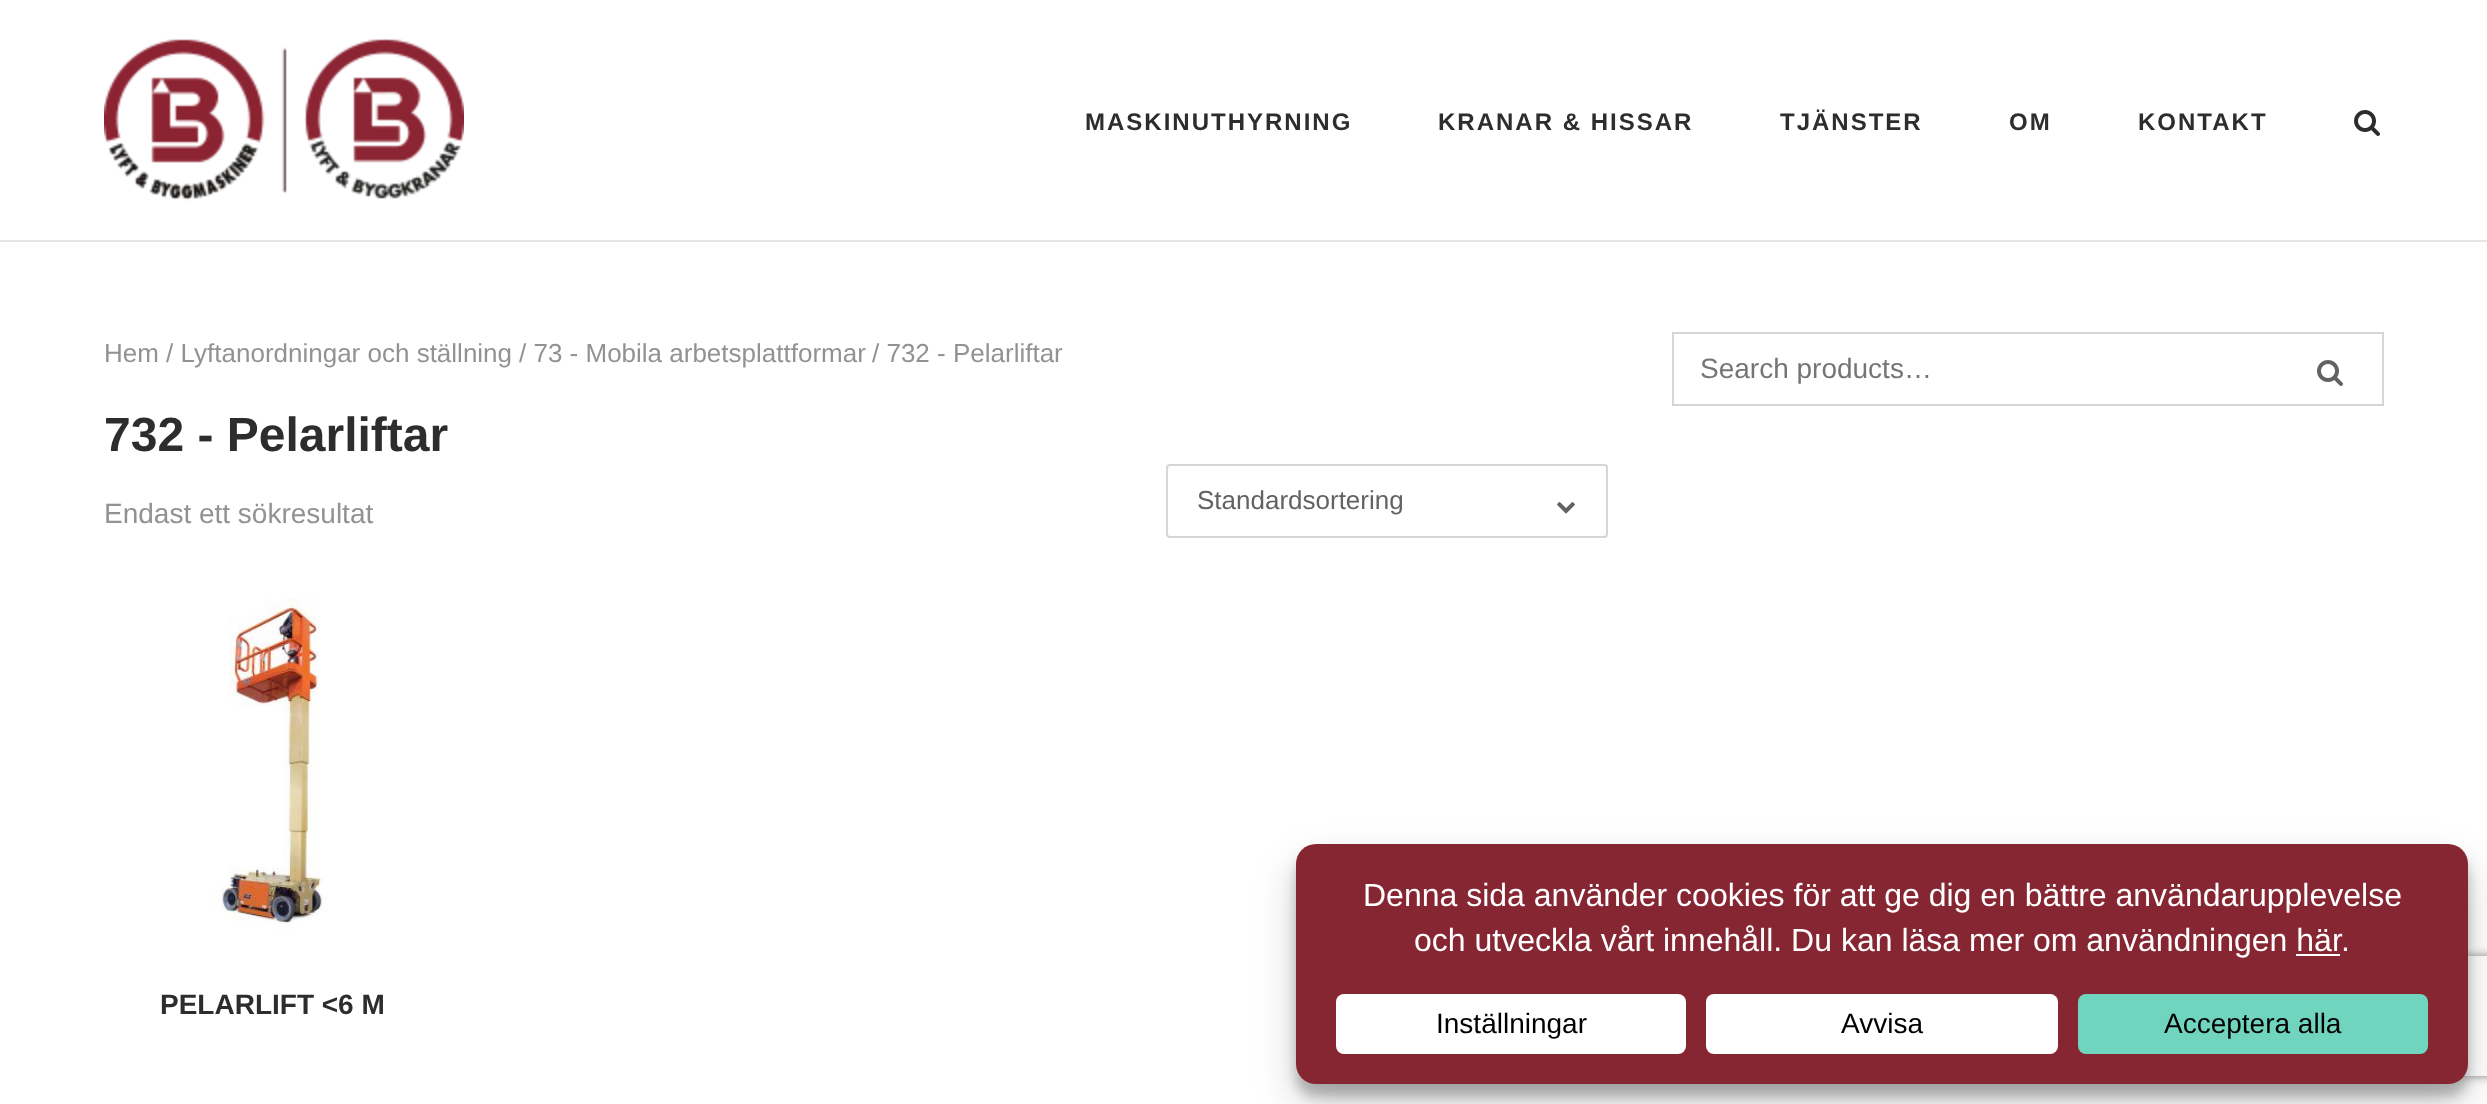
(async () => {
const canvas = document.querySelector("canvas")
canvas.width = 2487
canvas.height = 1104
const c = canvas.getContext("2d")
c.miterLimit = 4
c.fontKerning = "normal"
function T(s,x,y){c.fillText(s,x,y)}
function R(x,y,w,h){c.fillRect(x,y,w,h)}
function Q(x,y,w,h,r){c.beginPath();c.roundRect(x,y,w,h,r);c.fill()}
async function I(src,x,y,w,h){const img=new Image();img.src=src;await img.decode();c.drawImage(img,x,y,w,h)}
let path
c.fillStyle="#fff"
R(0,0,2487,1104)
c.fillStyle="#e6e6e6"
R(0,240,2487,2)
await I("1.png",104,38,360,163)
c.letterSpacing="2px"
c.font="bold 24px Liberation Sans"
c.fillStyle="#2d2d2d"
T("MASKINUTHYRNING",1085,130)
T("KRANAR & HISSAR",1438,130)
T("TJÄNSTER",1780,130)
T("OM",2009,130)
T("KONTAKT",2138,130)
await I("2.png",2354,110,26,26)
c.letterSpacing="0px"
c.font="26px Liberation Sans"
c.fillStyle="#929292"
T("Hem / Lyftanordningar och ställning",104,362)
T("/ 73 - Mobila arbetsplattformar",519,362)
T("/ 732 - Pelarliftar",872,362)
c.font="bold 48px Liberation Sans"
c.fillStyle="#2d2d2d"
T("732 - Pelarliftar",104,451)
c.font="28px Liberation Sans"
c.fillStyle="#929292"
T("Endast ett sökresultat",104,523)
c.beginPath()
c.roundRect(1167,465,440,72,3)
c.strokeStyle="#d6d6d6"
c.lineWidth=2
c.stroke()
c.font="26px Liberation Sans"
c.fillStyle="#626262"
T("Standardsortering",1197,509)
await I("3.png",1557,502,18,12)
await I("4.png",104,598,336,336)
c.font="bold 28px Liberation Sans"
c.fillStyle="#2d2d2d"
T("PELARLIFT <6 M",160,1014)
c.strokeRect(1673,333,710,72)
c.font="28px Liberation Sans"
c.fillStyle="#757575"
T("Search products…",1700,378)
await I("5.png",2317,360,26,26)
c.fillStyle="#0000003b"
c.filter="blur(6px)"
c.beginPath()
c.roundRect(1296,856,1172,240,20)
c.fill()
c.filter="none"
c.fillStyle="#00000030"
c.filter="blur(20px)"
c.beginPath()
c.roundRect(1296,864,1172,240,20)
c.fill()
c.filter="none"
c.save()
path = new Path2D("M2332 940h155v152h-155zm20 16h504c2 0 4 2 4 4v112c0 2-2 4-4 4h-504c-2 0-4-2-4-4v-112c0-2 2-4 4-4z")
c.clip(path,"evenodd")
c.fillStyle="#808080"
c.filter="blur(5px)"
c.beginPath()
c.roundRect(2348,956,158,120,4)
c.fill()
c.filter="none"
c.restore()
c.fillStyle="#862633"
Q(1296,844,1172,240,20)
c.font="32px Liberation Sans"
c.fillStyle="#fff"
T("Denna sida använder cookies för att ge dig en bättre användarupplevelse",1363,906)
T("och utveckla vårt innehåll. Du kan läsa mer om användningen här",1414,951)
T(".",2341,951)
R(2296,954,44,2)
Q(1336,994,350,60,8)
c.font="28px Liberation Sans"
c.fillStyle="#000"
T("Inställningar",1436,1033)
c.fillStyle="#fff"
Q(1706,994,352,60,8)
c.fillStyle="#000"
T("Avvisa",1841,1033)
c.fillStyle="#70d4be"
Q(2078,994,350,60,8)
c.fillStyle="#000"
T("Acceptera alla",2164,1033)
})()
